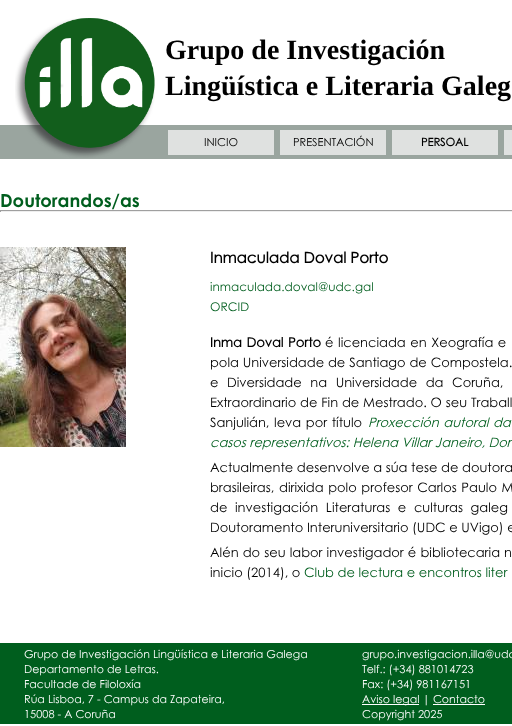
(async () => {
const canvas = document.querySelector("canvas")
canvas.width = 512
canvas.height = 726
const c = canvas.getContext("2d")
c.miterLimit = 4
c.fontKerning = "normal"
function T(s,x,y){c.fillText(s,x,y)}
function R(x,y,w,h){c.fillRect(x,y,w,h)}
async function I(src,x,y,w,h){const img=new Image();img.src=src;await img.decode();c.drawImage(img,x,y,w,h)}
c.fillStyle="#fff"
R(0,0,512,726)
c.fillStyle="#9aa59f"
R(0,125,512,34)
await I("1.png",15,18,140,140)
c.font="bold 28px Liberation Serif"
c.fillStyle="#000"
T("Grupo de Investigación",165,59)
T("Lingüística e Literaria Galeg",165,95)
c.fillStyle="#dfe1e0"
R(168,130,106,25)
c.font="11px Century Gothic"
c.fillStyle="#000"
T("INICIO",204,146)
c.fillStyle="#dfe1e0"
R(280,130,106,25)
c.fillStyle="#000"
T("PRESENTACIÓN",293,146)
c.fillStyle="#dfe1e0"
R(392,130,106,25)
c.font="bold 11px 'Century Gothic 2'"
c.fillStyle="#000"
T("PERSOAL",421,146)
c.fillStyle="#dfe1e0"
R(504,130,8,25)
c.font="bold 18px Century Gothic"
c.fillStyle="#005e1e"
T("Doutorandos/as",0,207)
c.fillStyle="#9f9f9f"
R(0,210,512,1)
c.fillStyle="#eee"
R(0,211,512,1)
c.fillStyle="#9f9f9f"
R(0,210,1,2)
await I("2.png",0,247,126,200)
c.font="bold 15px 'Century Gothic 2'"
c.fillStyle="#000"
T("Inmaculada Doval Porto",210,263)
c.font="12px Century Gothic"
c.fillStyle="#005e1e"
T("inmaculada.doval@udc.gal",210,291)
T("ORCID",210,311)
c.wordSpacing="1px"
c.font="bold 13px 'Century Gothic 2'"
c.fillStyle="#000"
T("Inma Doval Porto",210,347)
c.font="13px Century Gothic"
T("é licenciada en Xeografía e",325,347)
c.wordSpacing="0.25px"
T("pola Universidade de Santiago de Compostela.",210,367)
c.wordSpacing="5px"
T("e Diversidade na Universidade da Coruña,",210,387)
c.wordSpacing="0.25px"
T("Extraordinario de Fin de Mestrado. O seu Traball",210,407)
c.wordSpacing="1px"
T("Sanjulián, leva por título",210,427)
c.font="italic 13px Century Gothic"
c.fillStyle="#005e1e"
T("Proxección autoral da",368,427)
c.wordSpacing="0px"
T("casos representativos: Helena Villar Janeiro, Dor",210,447)
c.font="13px Century Gothic"
c.fillStyle="#000"
T("Actualmente desenvolve a súa tese de doutora",210,472)
c.wordSpacing="1px"
T("brasileiras, dirixida polo profesor Carlos Paulo M",210,492)
c.wordSpacing="4px"
T("de investigación Literaturas e culturas galeg",210,512)
c.wordSpacing="0px"
T("Doutoramento Interuniversitario (UDC e UVigo) e",210,532)
c.wordSpacing="0.5px"
T("Alén do seu labor investigador é bibliotecaria n",210,557)
c.wordSpacing="0px"
T("inicio (2014), o",210,577)
c.fillStyle="#005e1e"
T("Club de lectura e encontros liter",304,577)
R(0,643,512,81)
c.font="11px Century Gothic"
c.fillStyle="#fff"
T("Grupo de Investigación Lingüística e Literaria Galega",24,658)
T("Departamento de Letras.",24,673)
T("Facultade de Filoloxía",24,688)
T("Rúa Lisboa, 7 - Campus da Zapateira,",24,703)
T("15008 - A Coruña",24,718)
T("grupo.investigacion.illa@udc",362,658)
T("Telf.: (+34) 881014723",362,673)
T("Fax: (+34) 981167151",362,688)
R(362,704,57,1)
T("Aviso legal | Contacto",362,703)
R(433,704,52,1)
T("Copyright 2025",362,718)
})()
